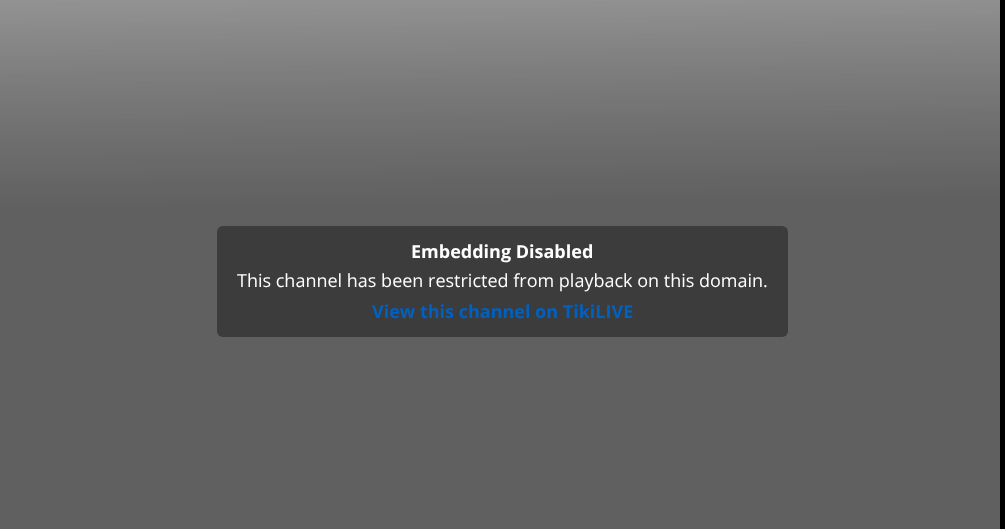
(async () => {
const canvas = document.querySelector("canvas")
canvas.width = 1005
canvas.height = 529
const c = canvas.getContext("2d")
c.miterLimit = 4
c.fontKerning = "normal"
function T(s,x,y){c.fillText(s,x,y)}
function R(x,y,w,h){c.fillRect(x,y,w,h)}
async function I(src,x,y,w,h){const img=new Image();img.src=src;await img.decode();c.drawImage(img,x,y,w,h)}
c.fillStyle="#000"
R(0,0,1005,529)
await I("1.png",0,0,1000,529)
await I("2.png",217,226,571,111)
c.font="bold 18px Open Sans"
c.fillStyle="#fff"
T("Embedding Disabled",411,258)
c.font="18px Open Sans"
T("This channel has been restricted from playback on this domain.",237,287)
c.font="bold 18px Open Sans"
c.fillStyle="#0061c0"
T("View this channel on TikiLIVE",372,318)
})()
